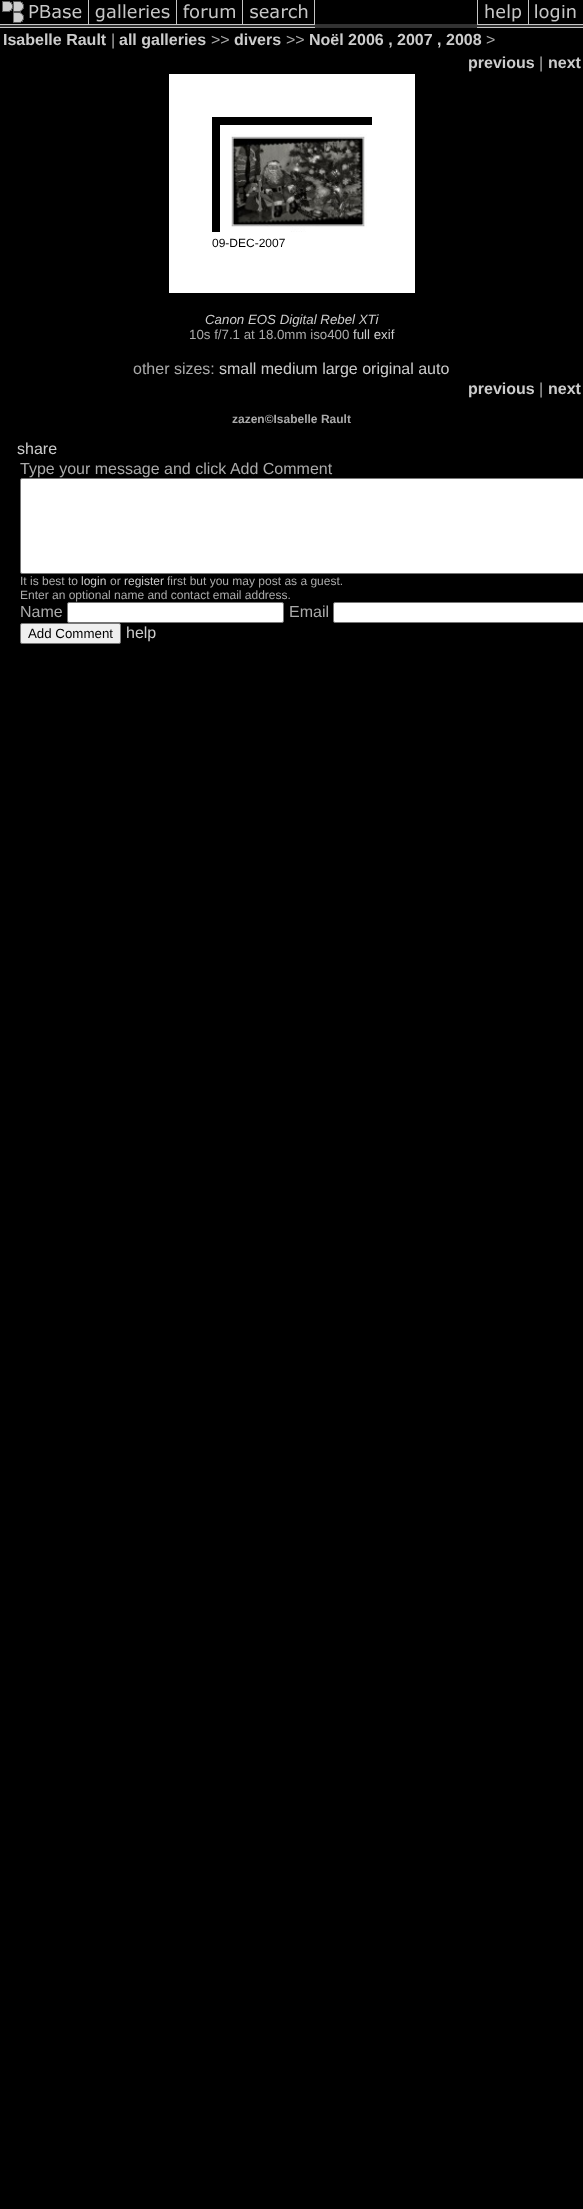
(async () => {
const canvas = document.querySelector("canvas")
canvas.width = 583
canvas.height = 2209
const c = canvas.getContext("2d")
c.miterLimit = 4
c.fontKerning = "normal"
function T(s,x,y){c.fillText(s,x,y)}
function R(x,y,w,h){c.fillRect(x,y,w,h)}
async function I(src,x,y,w,h){const img=new Image();img.src=src;await img.decode();c.drawImage(img,x,y,w,h)}
c.fillStyle="#000"
R(0,0,583,2209)
await I("1.png",0,0,89,28)
await I("2.png",89,0,88,28)
await I("3.png",177,0,66,28)
await I("4.png",243,0,72,28)
c.fillStyle="#323232"
R(315,24,162,4)
await I("5.png",477,0,52,28)
await I("6.png",529,4,54,24)
c.font="bold 16px Liberation Sans"
c.fillStyle="#ccc"
T("Isabelle Rault",3,45)
c.font="16px Liberation Sans"
c.fillStyle="#aaa"
T("|",111,45)
c.font="bold 16px Liberation Sans"
c.fillStyle="#ccc"
T("all galleries",119,45)
c.font="16px Liberation Sans"
c.fillStyle="#aaa"
T(">>",211,45)
c.font="bold 16px Liberation Sans"
c.fillStyle="#ccc"
T("divers",234,45)
c.font="16px Liberation Sans"
c.fillStyle="#aaa"
T(">>",286,45)
c.font="bold 16px Liberation Sans"
c.fillStyle="#ccc"
T("Noël 2006 , 2007 , 2008",309,45)
c.font="16px Liberation Sans"
c.fillStyle="#aaa"
T(">",486,45)
c.font="bold 16px Liberation Sans"
c.fillStyle="#ccc"
T("previous",468,68)
c.font="16px Liberation Sans"
c.fillStyle="#aaa"
T("|",539,68)
c.font="bold 16px Liberation Sans"
c.fillStyle="#ccc"
T("next",548,68)
c.fillStyle="#fff"
R(169,74,246,219)
c.save()
c.beginPath()
c.rect(212,117,160,115)
c.clip()
c.strokeStyle="#000"
c.lineWidth=8
c.strokeRect(216,121,164,121)
c.restore()
await I("7.png",231,134,136,98)
c.font="12px Liberation Sans"
c.fillStyle="#000"
T("09-DEC-2007",212,247)
c.font="italic 13.3px Liberation Sans"
c.fillStyle="#ccc"
T("Canon EOS Digital Rebel XTi",205,324)
c.font="13.3px Liberation Sans"
c.fillStyle="#aaa"
T("10s f/7.1 at 18.0mm iso400",189,339)
c.fillStyle="#ccc"
T("full exif",353,339)
c.font="16px Liberation Sans"
c.fillStyle="#aaa"
T("other sizes:",133,374)
c.fillStyle="#ccc"
T("small medium large original auto",219,374)
c.font="bold 16px Liberation Sans"
T("previous",468,394)
c.font="16px Liberation Sans"
c.fillStyle="#aaa"
T("|",539,394)
c.font="bold 16px Liberation Sans"
c.fillStyle="#ccc"
T("next",548,394)
c.font="bold 12px Liberation Sans"
c.fillStyle="#aaa"
T("zazen©Isabelle Rault",232,423)
c.font="16px Liberation Sans"
c.fillStyle="#ccc"
T("share",17,454)
c.fillStyle="#aaa"
T("Type your message and click Add Comment",20,474)
c.fillStyle="#fff"
c.beginPath()
c.roundRect(20.5,478.5,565,95,1.5)
c.fill()
c.strokeStyle="#767676"
c.stroke()
c.font="12px Liberation Sans"
c.fillStyle="#aaa"
T("It is best to",20,585)
c.fillStyle="#ccc"
T("login",81,585)
c.fillStyle="#aaa"
T("or",110,585)
c.fillStyle="#ccc"
T("register",124,585)
c.fillStyle="#aaa"
T("first but you may post as a guest.",167,585)
T("Enter an optional name and contact email address.",20,599)
c.font="16px Liberation Sans"
T("Name",20,617)
c.fillStyle="#fff"
c.beginPath()
c.roundRect(67.5,602.5,216,20,1.5)
c.fill()
c.stroke()
c.fillStyle="#aaa"
T("Email",289,617)
c.fillStyle="#fff"
c.beginPath()
c.roundRect(333.5,602.5,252,20,1.5)
c.fill()
c.stroke()
c.fillStyle="#efefef"
c.beginPath()
c.roundRect(20.5,623.5,100,20,1.5)
c.fill()
c.stroke()
c.font="13.3px Liberation Sans"
c.fillStyle="#000"
T("Add Comment",28,638)
c.font="16px Liberation Sans"
c.fillStyle="#ccc"
T("help",126,638)
})()
